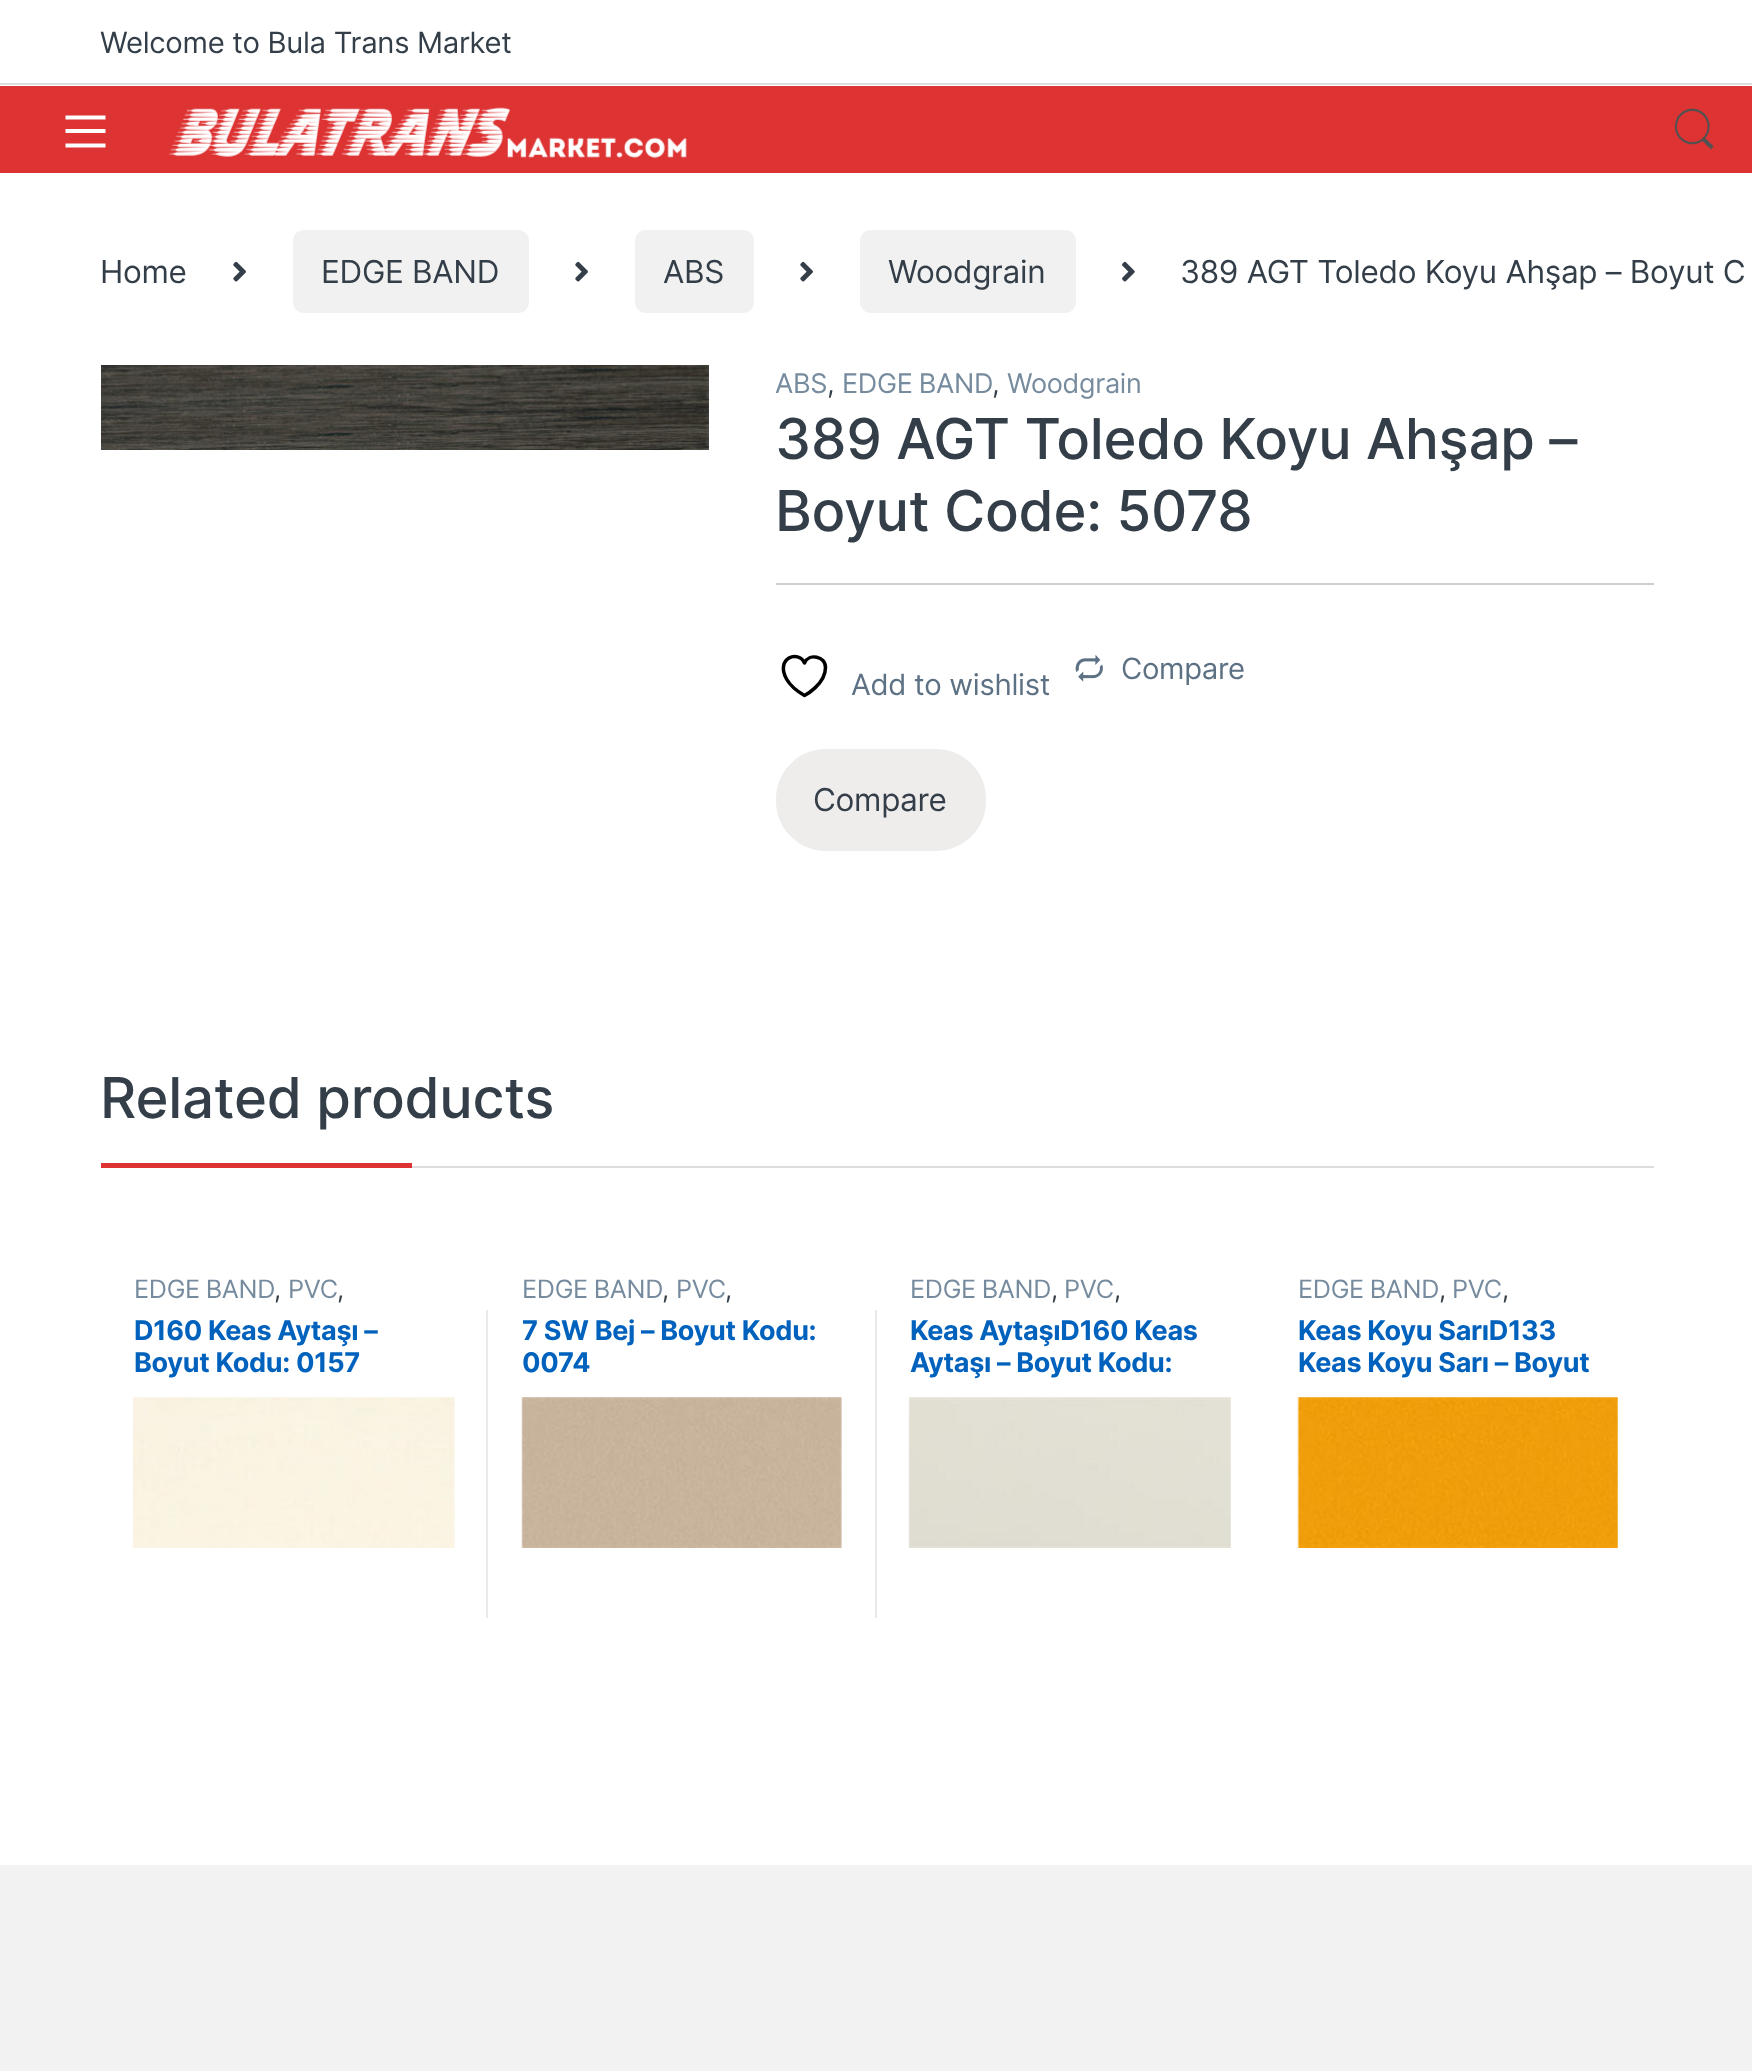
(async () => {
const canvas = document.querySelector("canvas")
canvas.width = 1752
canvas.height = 2071
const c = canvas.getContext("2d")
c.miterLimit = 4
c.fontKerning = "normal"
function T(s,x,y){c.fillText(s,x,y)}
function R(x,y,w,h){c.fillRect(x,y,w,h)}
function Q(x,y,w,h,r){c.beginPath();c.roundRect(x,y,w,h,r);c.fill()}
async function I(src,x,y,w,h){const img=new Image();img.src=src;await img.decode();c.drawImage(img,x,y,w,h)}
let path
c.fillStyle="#fff"
R(0,0,1752,2071)
c.fillStyle="#ddd"
R(0,83,1752,2)
c.letterSpacing="-0.3px"
c.font="29.25px Inter"
c.fillStyle="#333e48"
T("Welcome to Bula Trans Market",100,53)
c.fillStyle="#d33"
R(0,86,1752,87)
c.fillStyle="#fff"
path = new Path2D("M65.5 147.5v-4h40v4zm0-18.5h40v4h-40zm0-13.5h40v4h-40z")
c.fill(path)
await I("1.png",169,107,518,51)
await I("2.png",1674,108,40,42)
c.font="31.5px Inter"
c.fillStyle="#333e48"
T("Home",100,283)
await I("3.png",233,261,13,21)
c.fillStyle="#f1f1f1"
Q(293,230,236,83,11)
c.fillStyle="#333e48"
T("EDGE BAND",321,283)
await I("3.png",575,261,13,21)
c.fillStyle="#f1f1f1"
Q(635,230,119,83,11)
c.fillStyle="#333e48"
T("ABS",663,283)
await I("3.png",800,261,13,21)
c.fillStyle="#f1f1f1"
Q(860,230,216,83,11)
c.fillStyle="#333e48"
T("Woodgrain",888,283)
await I("4.png",1122,261,13,21)
T("389 AGT Toledo Koyu Ahşap – Boyut C",1180,283)
await I("5.png",101,365,608,85)
c.font="27px Inter"
c.fillStyle="#768b9e"
T("ABS",775,393)
c.fillStyle="#333e48"
T(",",827,393)
c.wordSpacing="-1px"
c.fillStyle="#768b9e"
T("EDGE BAND",842,393)
c.wordSpacing="0px"
c.fillStyle="#333e48"
T(",",992,393)
c.fillStyle="#768b9e"
T("Woodgrain",1007,393)
c.font="500 56.25px Inter"
c.fillStyle="#333e48"
T("389 AGT Toledo Koyu Ahşap –",775,459)
T("Boyut Code: 5078",775,531)
c.fillStyle="#cccfd1"
R(776,583,878,2)
path = new Path2D("M825.5 667.5c0-11.5-16.5-14.5-21-4.5c-6-13.5-29.5-5-18 16c4 7 11 12.5 18 16.5c0 0 21-11 21-28z")
c.strokeStyle="#000"
c.lineWidth=3.5
c.lineCap="round"
c.lineJoin="round"
c.stroke(path)
c.font="29.25px Inter"
c.fillStyle="#5d7184"
T("Add to wishlist",851,695)
await I("6.png",1075,654,28,28)
T("Compare",1121,679)
c.fillStyle="#efecec"
c.beginPath()
c.roundRect(777,750,208,100,49)
c.fill()
c.strokeStyle="#efecec"
c.lineWidth=2
c.lineJoin="miter"
c.stroke()
c.font="31.5px Inter"
c.fillStyle="#333e48"
T("Compare",813,811)
c.fillStyle="#ddd"
R(412,1166,1242,2)
c.font="500 56.25px Inter"
c.fillStyle="#333e48"
T("Related products",100,1118)
c.fillStyle="#d33"
R(101,1163,311,5)
c.wordSpacing="-1px"
c.font="25.25px Inter"
c.fillStyle="#768b9e"
T("EDGE BAND",134,1298)
c.wordSpacing="0px"
c.fillStyle="#333e48"
T(",",274,1298)
c.fillStyle="#768b9e"
T("PVC",288,1298)
c.fillStyle="#333e48"
T(",",337,1298)
c.font="bold 27px Inter"
c.fillStyle="#0062bd"
T("D160 Keas Aytaşı –",134,1340)
T("Boyut Kodu: 0157",134,1372)
await I("7.png",133,1397,322,151)
c.fillStyle="#eaeaea"
R(486,1310,2,308)
c.wordSpacing="-1px"
c.font="25.25px Inter"
c.fillStyle="#768b9e"
T("EDGE BAND",522,1298)
c.wordSpacing="0px"
c.fillStyle="#333e48"
T(",",662,1298)
c.fillStyle="#768b9e"
T("PVC",676,1298)
c.fillStyle="#333e48"
T(",",725,1298)
c.font="bold 27px Inter"
c.fillStyle="#0062bd"
T("7 SW Bej – Boyut Kodu:",522,1340)
T("0074",522,1372)
await I("8.png",521,1397,321,151)
c.fillStyle="#eaeaea"
R(875,1310,2,308)
c.wordSpacing="-1px"
c.font="25.25px Inter"
c.fillStyle="#768b9e"
T("EDGE BAND",910,1298)
c.wordSpacing="0px"
c.fillStyle="#333e48"
T(",",1051,1298)
c.fillStyle="#768b9e"
T("PVC",1064,1298)
c.fillStyle="#333e48"
T(",",1114,1298)
c.font="bold 27px Inter"
c.fillStyle="#0062bd"
T("Keas AytaşıD160 Keas",910,1340)
T("Aytaşı – Boyut Kodu:",910,1372)
await I("9.png",908,1397,323,151)
c.wordSpacing="-1px"
c.font="25.25px Inter"
c.fillStyle="#768b9e"
T("EDGE BAND",1298,1298)
c.wordSpacing="0px"
c.fillStyle="#333e48"
T(",",1439,1298)
c.fillStyle="#768b9e"
T("PVC",1452,1298)
c.fillStyle="#333e48"
T(",",1502,1298)
c.font="bold 27px Inter"
c.fillStyle="#0062bd"
T("Keas Koyu SarıD133",1298,1340)
T("Keas Koyu Sarı – Boyut",1298,1372)
await I("10.png",1297,1397,321,151)
c.fillStyle="#f2f2f2"
R(0,1865,1752,206)
})()
